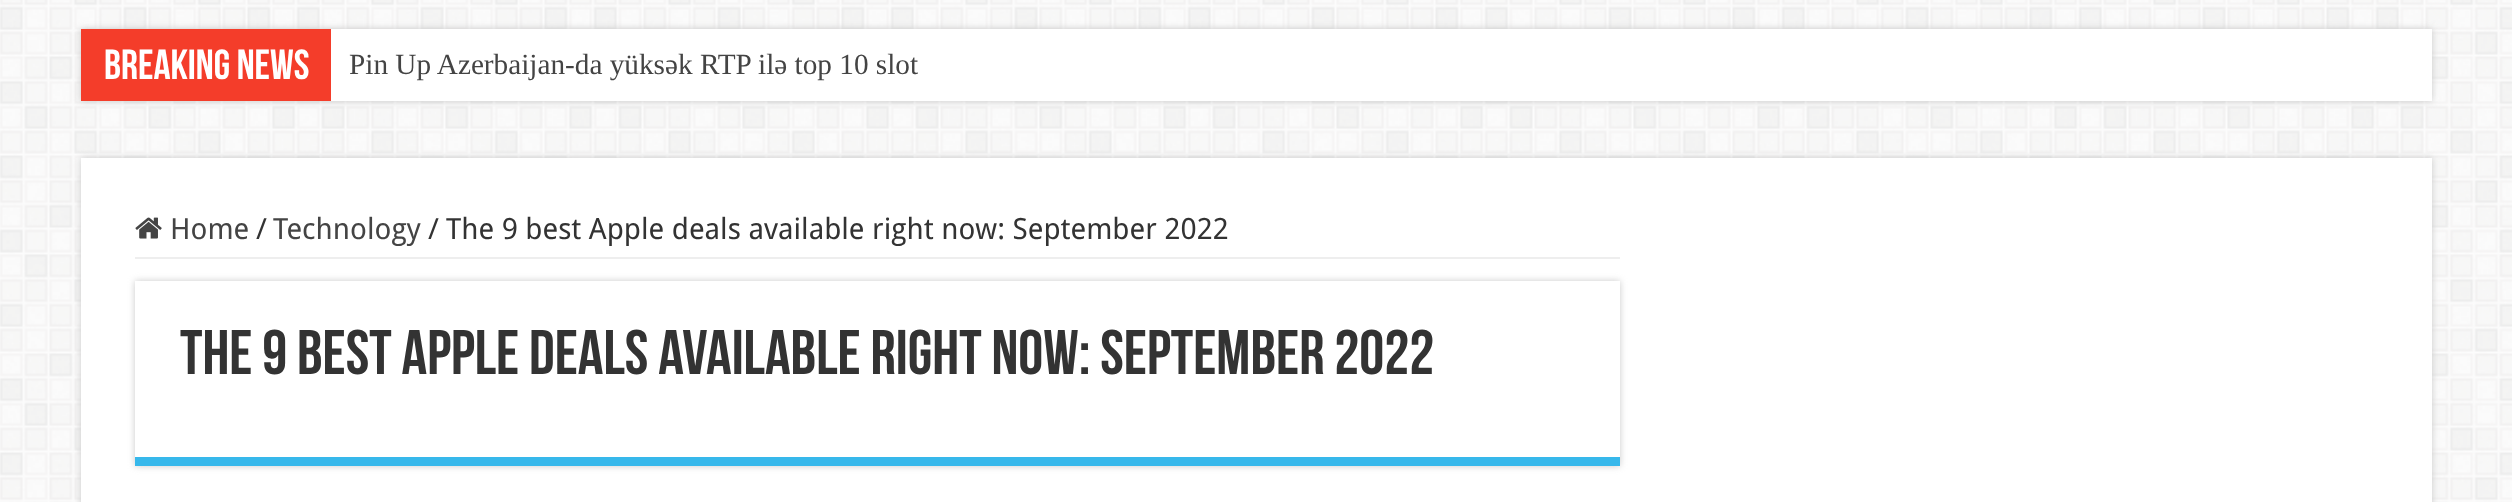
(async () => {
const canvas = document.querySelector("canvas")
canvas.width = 2512
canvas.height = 502
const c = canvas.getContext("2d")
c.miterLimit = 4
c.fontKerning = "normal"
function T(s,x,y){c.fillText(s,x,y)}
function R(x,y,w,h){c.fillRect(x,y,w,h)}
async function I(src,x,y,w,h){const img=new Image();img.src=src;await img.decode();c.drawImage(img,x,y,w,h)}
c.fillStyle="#fff"
R(0,0,2512,502)
await I("1.png",0,0,2512,502)
c.fillStyle="#cacaca"
c.filter="blur(3.5px)"
c.beginPath()
c.rect(81,29,2351,72)
c.fill()
c.filter="none"
c.fillStyle="#fff"
R(331,29,2101,72)
c.fillStyle="#f43d2a"
R(81,29,250,72)
c.font="bold 42px Bebas Neue"
c.fillStyle="#fff"
T("Breaking News",104,79)
c.font="29.25px Liberation Serif"
c.fillStyle="#444"
T("Pin Up Azerbaijan-da yüksək RTP ilə top 10 slot",349,74)
c.fillStyle="#cacaca"
c.filter="blur(3.5px)"
c.beginPath()
c.rect(81,158,2351,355)
c.fill()
c.filter="none"
c.fillStyle="#fff"
R(81,158,2351,344)
c.fillStyle="#eee"
R(135,257,1485,2)
await I("2.png",135,217,27,22)
c.font="29.25px Droid Sans"
c.fillStyle="#444"
T("Home",170,239)
c.fillStyle="#333"
T("/",256,239)
c.fillStyle="#444"
T("Technology",273,239)
c.fillStyle="#333"
T("/",428,239)
T("The 9 best Apple deals available right now: September 2022",446,239)
c.fillStyle="#cacaca"
c.filter="blur(3.5px)"
c.beginPath()
c.rect(135,281,1485,185)
c.fill()
c.filter="none"
c.fillStyle="#fff"
R(135,281,1485,176)
c.fillStyle="#37b8eb"
R(135,457,1485,9)
c.font="bold 63px Bebas Neue"
c.fillStyle="#333"
T("The 9 best Apple deals available right now: September 2022",180,374)
})()
